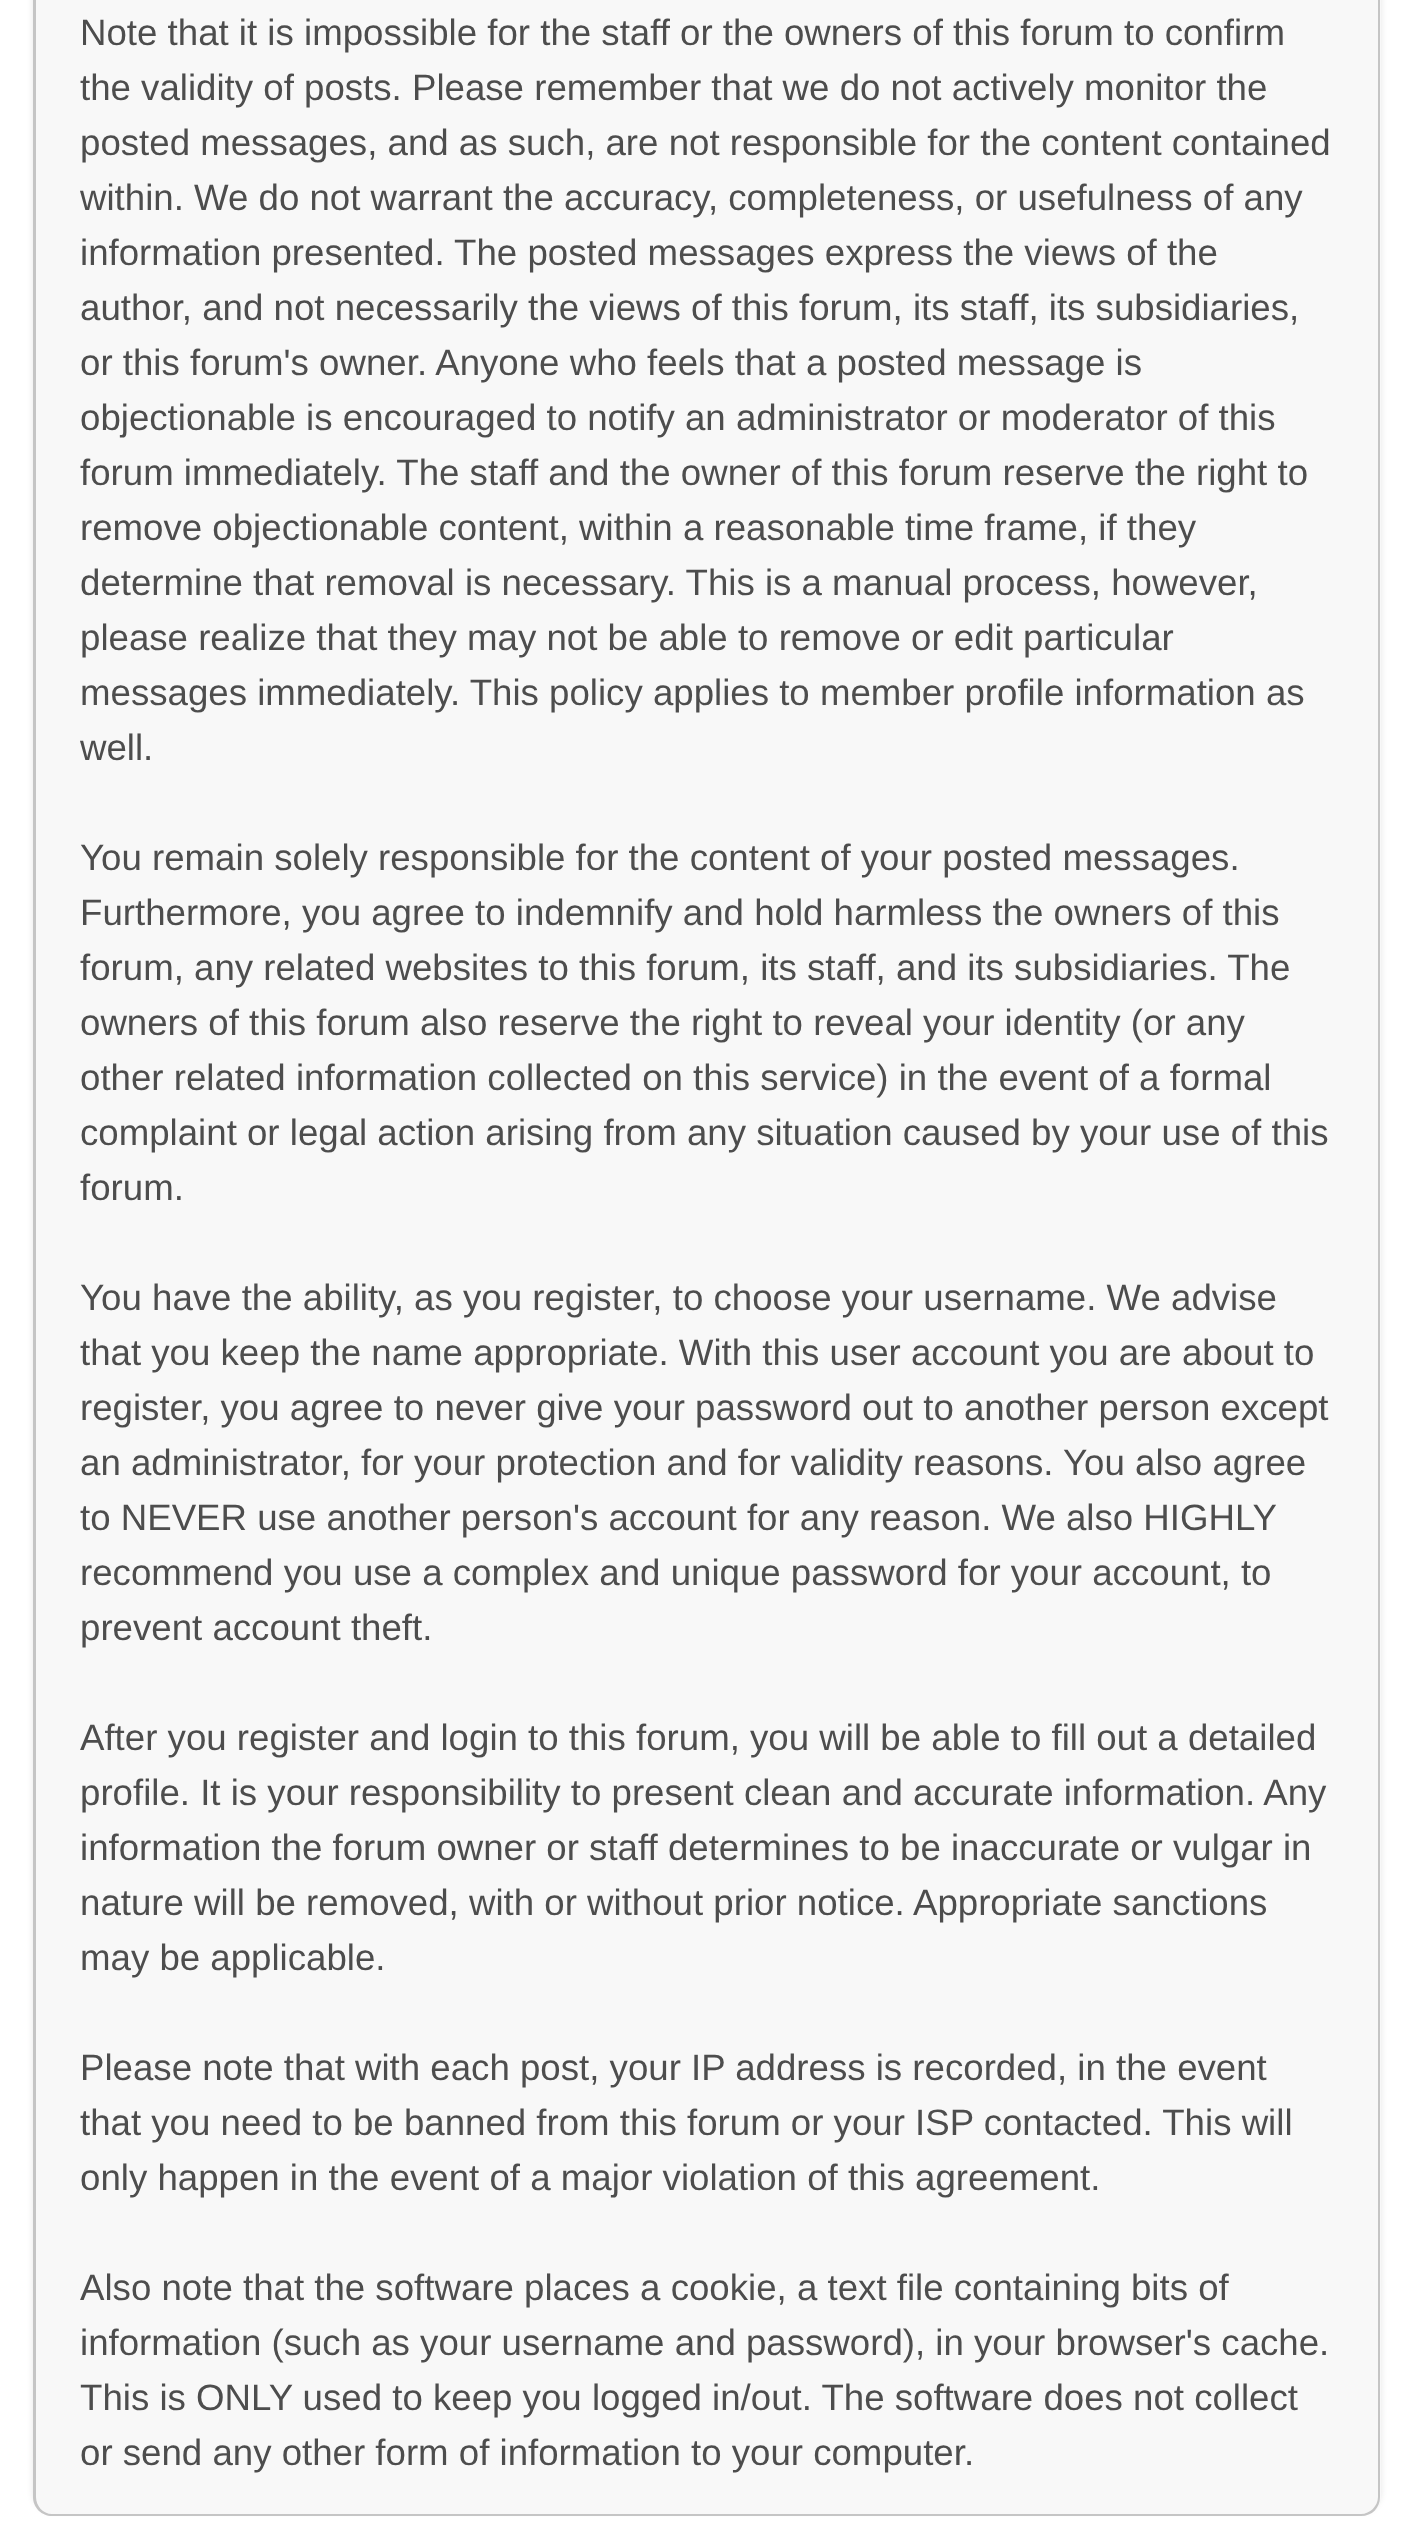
(async () => {
const canvas = document.querySelector("canvas")
canvas.width = 1413
canvas.height = 2537
const c = canvas.getContext("2d")
c.miterLimit = 4
c.fontKerning = "normal"
function T(s,x,y){c.fillText(s,x,y)}
function R(x,y,w,h){c.fillRect(x,y,w,h)}
let path
c.fillStyle="#fff"
R(0,0,1413,2537)
c.fillStyle="#0000001a"
c.filter="blur(3px)"
c.beginPath()
c.roundRect(33,-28,1348,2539,19)
c.fill()
c.filter="none"
c.fillStyle="#f8f8f8"
path = new Path2D("M33-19h1348v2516c0 10.5-8.5 19-19 19h-1310c-10.5 0-19-8.5-19-19z")
c.fill(path)
c.fillStyle="#c5c5c5"
path = new Path2D("M33-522h1347v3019c0 11-8 19-19 19h-1309c-10 0-19-8-19-19zm3 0h1342v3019c0 9-8 17-17 17h-1309c-9 0-16-8-16-17z")
c.fill(path,"evenodd")
c.font="36.65px Liberation Sans"
c.fillStyle="#4d4d4d"
T("Note that it is impossible for the staff or the owners of this forum to confirm",80,45)
T("the validity of posts. Please remember that we do not actively monitor the",80,100)
T("posted messages, and as such, are not responsible for the content contained",80,155)
T("within. We do not warrant the accuracy, completeness, or usefulness of any",80,210)
T("information presented. The posted messages express the views of the",80,265)
T("author, and not necessarily the views of this forum, its staff, its subsidiaries,",80,320)
T("or this forum's owner. Anyone who feels that a posted message is",80,375)
T("objectionable is encouraged to notify an administrator or moderator of this",80,430)
T("forum immediately. The staff and the owner of this forum reserve the right to",80,485)
T("remove objectionable content, within a reasonable time frame, if they",80,540)
T("determine that removal is necessary. This is a manual process, however,",80,595)
T("please realize that they may not be able to remove or edit particular",80,650)
T("messages immediately. This policy applies to member profile information as",80,705)
T("well.",80,760)
T("You remain solely responsible for the content of your posted messages.",80,870)
T("Furthermore, you agree to indemnify and hold harmless the owners of this",80,925)
T("forum, any related websites to this forum, its staff, and its subsidiaries. The",80,980)
T("owners of this forum also reserve the right to reveal your identity (or any",80,1035)
T("other related information collected on this service) in the event of a formal",80,1090)
T("complaint or legal action arising from any situation caused by your use of this",80,1145)
T("forum.",80,1200)
T("You have the ability, as you register, to choose your username. We advise",80,1310)
T("that you keep the name appropriate. With this user account you are about to",80,1365)
T("register, you agree to never give your password out to another person except",80,1420)
T("an administrator, for your protection and for validity reasons. You also agree",80,1475)
T("to NEVER use another person's account for any reason. We also HIGHLY",80,1530)
T("recommend you use a complex and unique password for your account, to",80,1585)
T("prevent account theft.",80,1640)
T("After you register and login to this forum, you will be able to fill out a detailed",80,1750)
T("profile. It is your responsibility to present clean and accurate information. Any",80,1805)
T("information the forum owner or staff determines to be inaccurate or vulgar in",80,1860)
T("nature will be removed, with or without prior notice. Appropriate sanctions",80,1915)
T("may be applicable.",80,1970)
T("Please note that with each post, your IP address is recorded, in the event",80,2080)
T("that you need to be banned from this forum or your ISP contacted. This will",80,2135)
T("only happen in the event of a major violation of this agreement.",80,2190)
T("Also note that the software places a cookie, a text file containing bits of",80,2300)
T("information (such as your username and password), in your browser's cache.",80,2355)
T("This is ONLY used to keep you logged in/out. The software does not collect",80,2410)
T("or send any other form of information to your computer.",80,2465)
})()
